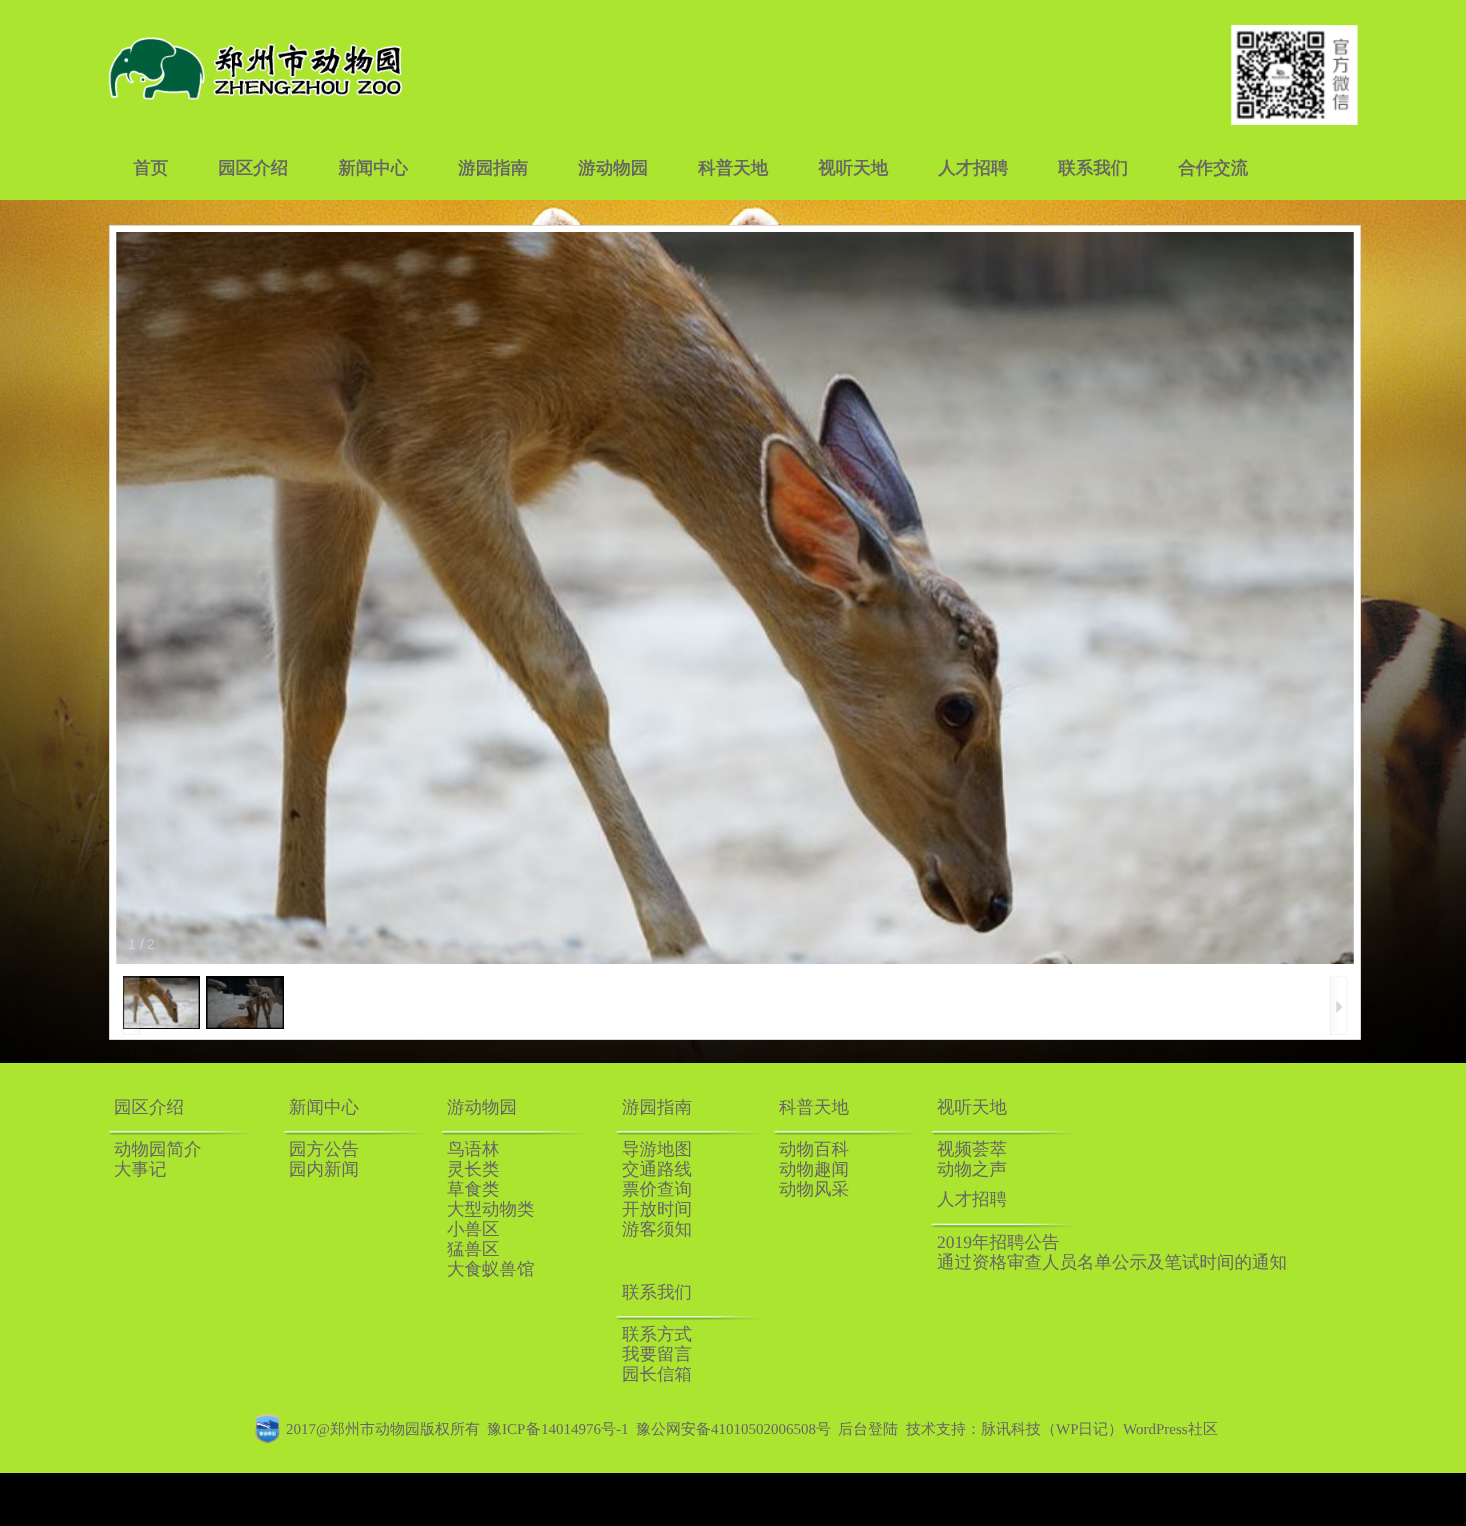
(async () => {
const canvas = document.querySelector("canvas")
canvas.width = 1466
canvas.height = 1526
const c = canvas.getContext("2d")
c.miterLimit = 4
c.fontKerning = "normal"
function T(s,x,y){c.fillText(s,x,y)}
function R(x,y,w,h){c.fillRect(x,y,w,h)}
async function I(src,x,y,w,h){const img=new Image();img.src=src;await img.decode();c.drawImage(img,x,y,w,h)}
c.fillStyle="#000"
R(0,0,1466,1526)
c.fillStyle="#ace530"
R(0,0,1466,200)
await I("1.png",108,37,295,63)
await I("2.png",1230,25,129,100)
c.font="bold 17.5px WenQuanYi Zen Hei"
c.fillStyle="#666"
T("首页",133,174)
T("园区介绍",218,174)
T("新闻中心",338,174)
T("游园指南",458,174)
T("游动物园",578,174)
T("科普天地",698,174)
T("视听天地",818,174)
T("人才招聘",938,174)
T("联系我们",1058,174)
T("合作交流",1178,174)
await I("3.png",0,200,1466,863)
c.fillStyle="#fff"
c.beginPath()
c.rect(109.5,225.5,1251,814)
c.fill()
c.strokeStyle="#d8d8d8"
c.stroke()
await I("4.png",116,232,1238,732)
c.font="14px Liberation Sans"
c.fillStyle="#d7d7da"
T("1",128,949)
T("/",140,949)
c.fillStyle="#cfcfd0"
T("2",147,949)
c.fillStyle="#000"
R(123,976,77,53)
await I("6.png",124,978,75,50)
await I("5.png",122,976,18,59)
R(206,976,78,53)
await I("7.png",207,978,76,50)
await I("8.png",1330,976,18,59)
c.fillStyle="#ace530"
R(0,1063,1466,410)
await I("9.png",108,1131,143,4)
c.font="500 17.5px WenQuanYi Zen Hei"
c.fillStyle="#666"
T("园区介绍",114,1113)
T("动物园简介",114,1155)
T("大事记",114,1175)
await I("9.png",283,1131,143,4)
T("新闻中心",289,1113)
T("园方公告",289,1155)
T("园内新闻",289,1175)
await I("10.png",441,1131,142,4)
T("游动物园",447,1113)
T("鸟语林",447,1155)
T("灵长类",447,1175)
T("草食类",447,1195)
T("大型动物类",447,1215)
T("小兽区",447,1235)
T("猛兽区",447,1255)
T("大食蚁兽馆",447,1275)
await I("10.png",616,1131,142,4)
T("游园指南",622,1113)
T("导游地图",622,1155)
T("交通路线",622,1175)
T("票价查询",622,1195)
T("开放时间",622,1215)
T("游客须知",622,1235)
await I("9.png",773,1131,143,4)
T("科普天地",779,1113)
T("动物百科",779,1155)
T("动物趣闻",779,1175)
T("动物风采",779,1195)
await I("10.png",931,1131,142,4)
T("视听天地",937,1113)
T("视频荟萃",937,1155)
T("动物之声",937,1175)
await I("11.png",931,1223,142,5)
T("人才招聘",937,1205)
c.font="17.5px Liberation Serif"
T("2019",937,1248)
c.font="500 17.5px WenQuanYi Zen Hei"
T("年招聘公告",972,1248)
T("通过资格审查人员名单公示及笔试时间的通知",937,1268)
await I("10.png",616,1316,142,4)
T("联系我们",622,1298)
T("联系方式",622,1340)
T("我要留言",622,1360)
T("园长信箱",622,1380)
await I("12.png",255,1413,25,31)
c.font="15px Liberation Serif"
T("2017@",286,1434)
c.font="500 15px WenQuanYi Zen Hei"
T("郑州市动物园版权所有",330,1434)
T("豫",487,1434)
c.font="15px Liberation Serif"
T("ICP",502,1434)
c.font="500 15px WenQuanYi Zen Hei"
T("备",526,1434)
c.font="15px Liberation Serif"
T("14014976",541,1434)
c.font="500 15px WenQuanYi Zen Hei"
T("号",601,1434)
c.font="15px Liberation Serif"
T("-1",616,1434)
c.font="500 15px WenQuanYi Zen Hei"
T("豫公网安备",636,1434)
c.font="15px Liberation Serif"
T("41010502006508",711,1434)
c.font="500 15px WenQuanYi Zen Hei"
T("号",816,1434)
T("后台登陆",838,1434)
T("技术支持：脉讯科技（",906,1434)
c.font="15px Liberation Serif"
T("WP",1056,1434)
c.font="500 15px WenQuanYi Zen Hei"
T("日记）",1078,1434)
c.font="15px Liberation Serif"
T("WordPress",1123,1434)
c.font="500 15px WenQuanYi Zen Hei"
T("社区",1188,1434)
})()
